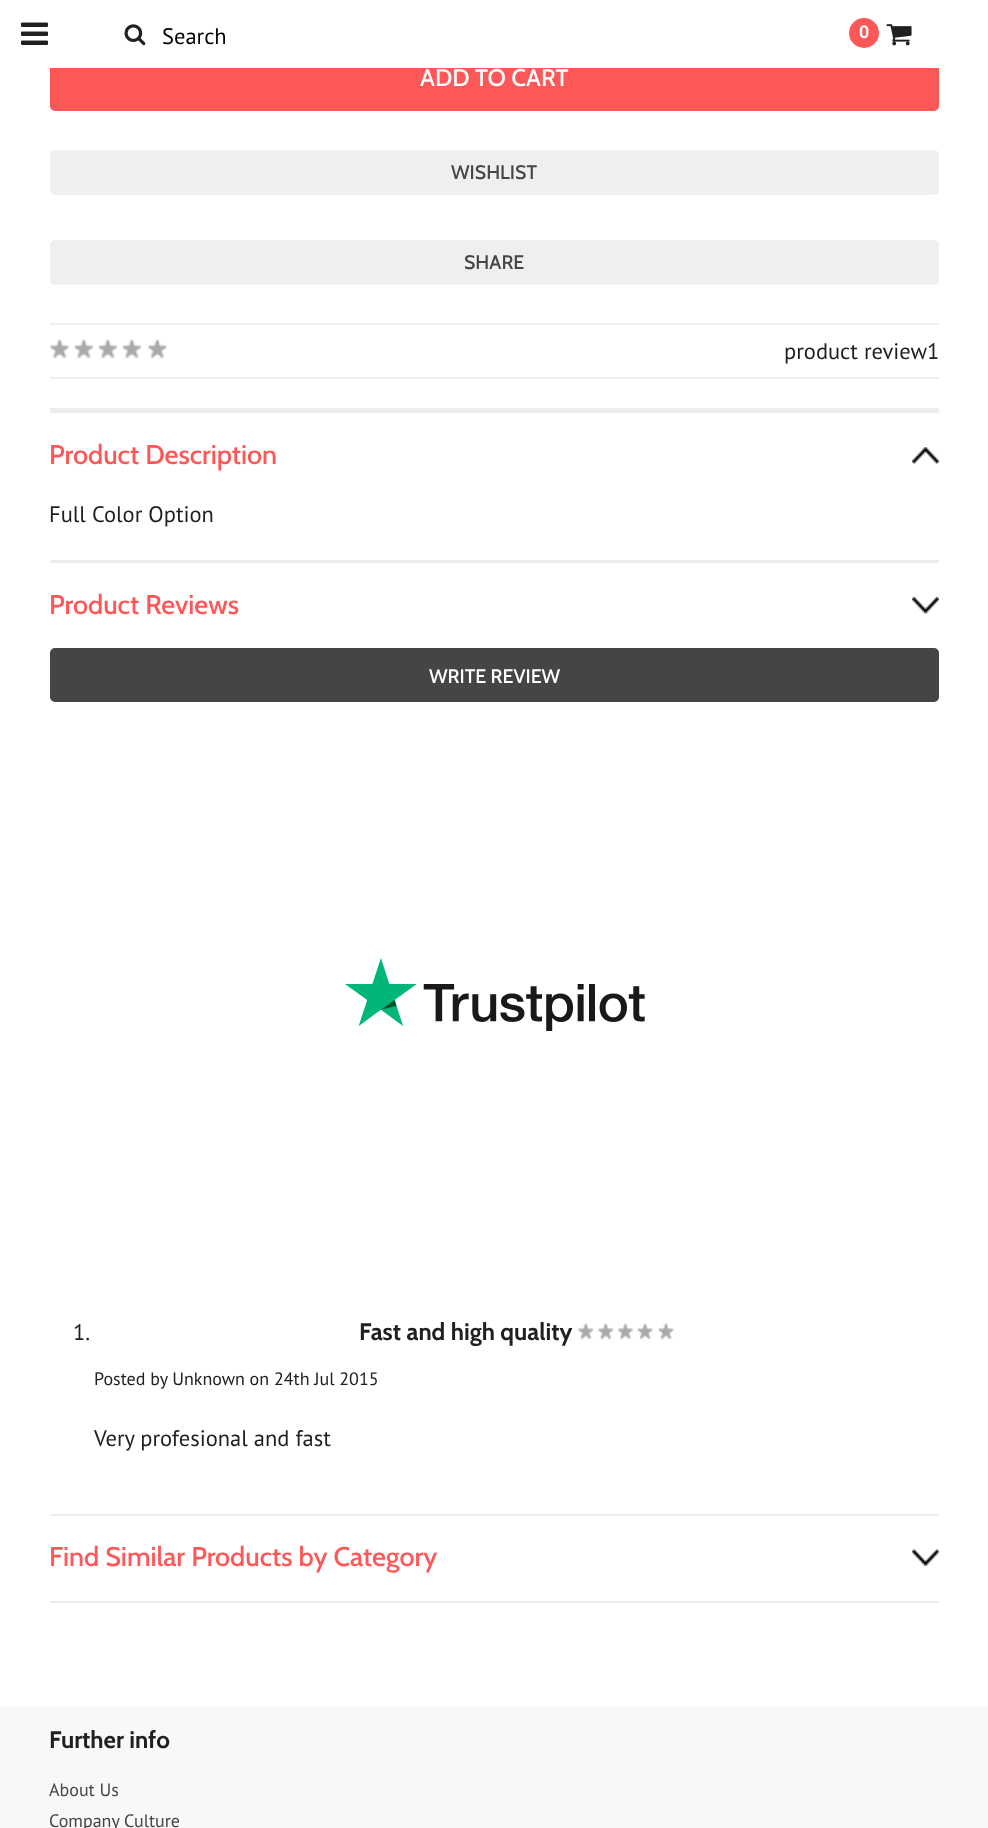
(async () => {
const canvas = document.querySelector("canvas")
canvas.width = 988
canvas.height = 1828
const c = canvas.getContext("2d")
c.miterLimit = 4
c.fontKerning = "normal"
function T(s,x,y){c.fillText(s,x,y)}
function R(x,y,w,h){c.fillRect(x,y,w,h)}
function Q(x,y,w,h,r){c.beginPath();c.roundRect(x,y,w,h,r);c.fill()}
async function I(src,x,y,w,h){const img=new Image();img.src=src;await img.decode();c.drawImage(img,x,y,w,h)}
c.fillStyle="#fff"
R(0,0,988,1828)
c.fillStyle="#fd5757"
c.beginPath()
c.roundRect(51.5,43.5,886,66,3.5)
c.fill()
c.strokeStyle="#fd5757"
c.lineWidth=3
c.stroke()
c.fillStyle="#fff"
R(50,42,889,26)
await I("1.png",21,22,27,23)
await I("2.png",124,24,22,22)
c.font="22.5px PT Sans"
c.fillStyle="#000"
T("Search",162,44)
c.fillStyle="#fd5757"
c.beginPath()
c.arc(864,33,15,0,7)
c.fill()
c.font="bold 18px PT Sans"
c.fillStyle="#fff"
T("0",859,38)
await I("3.png",886,24,26,22)
c.font="500 24px Cabin"
T("ADD TO CART",420,86)
c.fillStyle="#f0efee"
c.beginPath()
c.roundRect(51.5,151.5,886,42,3.5)
c.fill()
c.strokeStyle="#f0efee"
c.stroke()
c.font="500 19.5px Cabin"
c.fillStyle="#454545"
T("WISHLIST",451,179)
c.fillStyle="#f0efee"
Q(50,240,889,45,5)
c.fillStyle="#454545"
T("SHARE",464,269)
c.fillStyle="#f0efee"
R(50,323,889,2)
R(50,377,889,2)
await I("4.png",49,339,118,20)
c.font="22.5px PT Sans"
c.fillStyle="#202020"
T("product review",784,359)
T("1",927,359)
c.fillStyle="#ededed"
R(50,408,889,5)
R(50,560,889,3)
await I("5.png",912,447,27,17)
c.font="500 27px Cabin"
c.fillStyle="#fd5757"
T("Product Description",49,464)
c.font="22.5px PT Sans"
c.fillStyle="#202020"
T("Full Color Option",49,522)
c.fillStyle="#ededed"
R(50,1514,889,2)
await I("6.png",912,597,27,17)
c.font="500 27px Cabin"
c.fillStyle="#fd5757"
T("Product Reviews",49,614)
c.fillStyle="#454545"
c.beginPath()
c.roundRect(51.5,649.5,886,51,3.5)
c.fill()
c.strokeStyle="#454545"
c.stroke()
c.font="500 19.5px Cabin"
c.fillStyle="#fff"
T("WRITE REVIEW",429,683)
await I("7.png",345,958,300,73)
c.font="22.5px PT Sans"
c.fillStyle="#202020"
T("1.",73,1340)
c.font="bold 24px Cabin"
T("Fast and high quality",359,1340)
await I("8.png",577,1323,97,17)
c.font="18px PT Sans"
T("Posted by Unknown on 24th Jul 2015",94,1385)
c.font="22.5px PT Sans"
T("Very profesional and fast",94,1446)
c.fillStyle="#ededed"
R(50,1601,889,2)
await I("9.png",912,1549,27,17)
c.font="500 27px Cabin"
c.fillStyle="#fd5757"
T("Find Similar Products by Category",49,1566)
c.fillStyle="#f8f8f8"
R(0,1707,988,121)
c.font="bold 24px Cabin"
c.fillStyle="#202020"
T("Further info",49,1748)
c.font="18px PT Sans"
c.fillStyle="#454545"
T("About Us",49,1796)
T("Company Culture",49,1827)
})()
